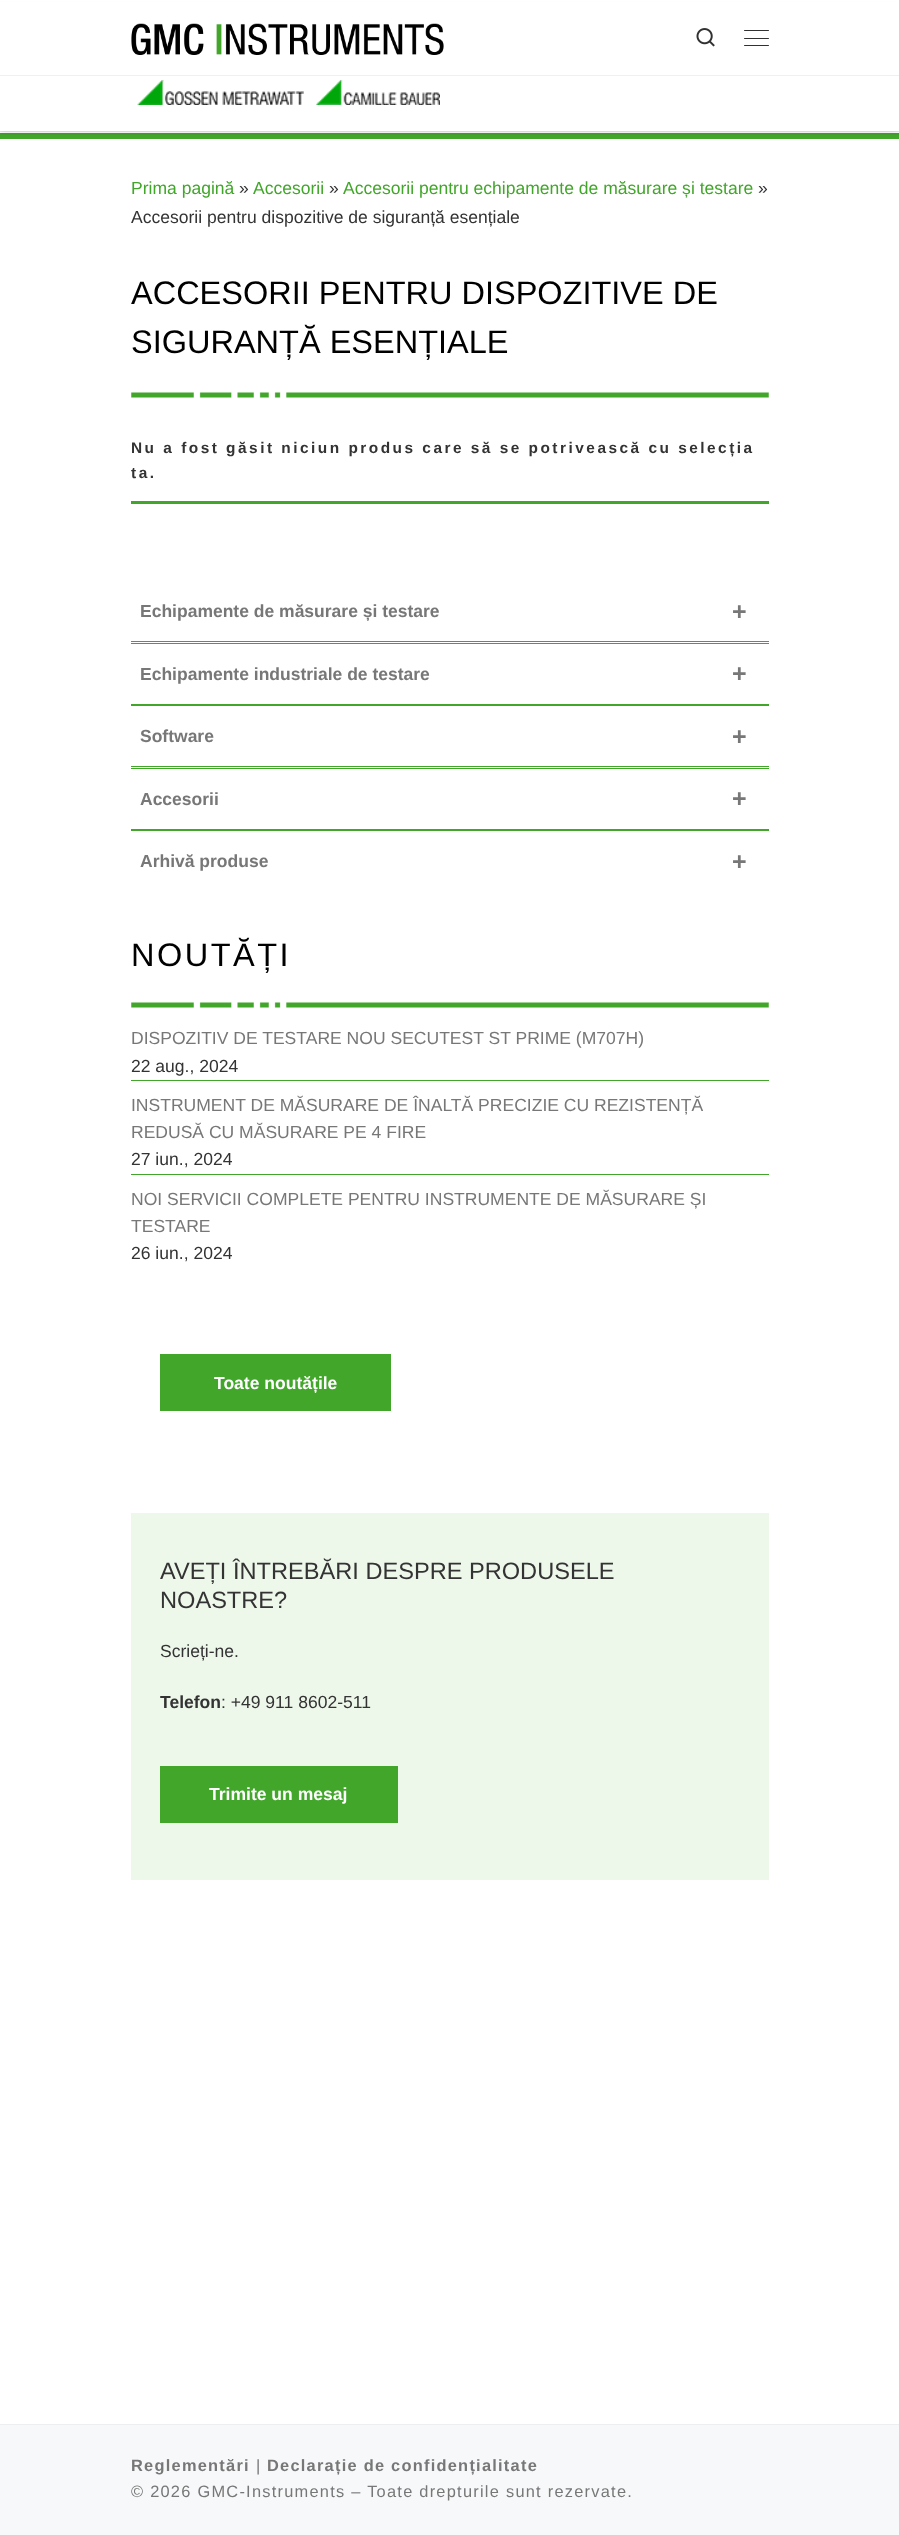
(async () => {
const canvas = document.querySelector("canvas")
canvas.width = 899
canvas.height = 2535
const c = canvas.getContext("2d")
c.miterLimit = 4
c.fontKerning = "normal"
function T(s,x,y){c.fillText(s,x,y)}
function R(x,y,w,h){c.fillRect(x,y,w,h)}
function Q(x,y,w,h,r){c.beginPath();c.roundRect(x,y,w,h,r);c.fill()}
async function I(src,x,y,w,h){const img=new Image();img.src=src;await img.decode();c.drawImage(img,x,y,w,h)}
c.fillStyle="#fff"
R(0,0,899,2535)
c.fillStyle="#41a62a"
R(0,133,899,6)
c.fillStyle="#66666614"
c.filter="blur(1px)"
c.beginPath()
c.rect(0,3,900,132)
c.fill()
c.filter="none"
c.fillStyle="#fff"
R(0,2,899,131)
c.fillStyle="#ececec"
R(0,131,899,1)
c.fillStyle="#ffffff26"
R(0,131,899,1)
c.save()
c.beginPath()
c.rect(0,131,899,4)
c.clip()
c.fillStyle="#00000033"
c.filter="blur(3px)"
c.beginPath()
c.rect(0,0,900,131)
c.fill()
c.filter="none"
c.restore()
await I("1.png",131,23,313,32)
await I("2.png",696,28,19,19)
c.fillStyle="#313131"
Q(744,30,25,1,.5)
Q(744,38,25,1,.5)
Q(744,45,25,1,.5)
c.fillStyle="#f0f0f0"
R(0,75,899,1)
await I("3.png",137,80,167,25)
await I("4.png",316,80,124,25)
c.font="17.55px Liberation Sans"
c.fillStyle="#41a62a"
T("Prima pagină",131,194)
c.fillStyle="#333"
T("»",239,194)
c.fillStyle="#41a62a"
T("Accesorii",253,194)
c.fillStyle="#333"
T("»",329,194)
c.fillStyle="#41a62a"
T("Accesorii pentru echipamente de măsurare și testare",343,194)
c.fillStyle="#333"
T("»",758,194)
T("Accesorii pentru dispozitive de siguranță esențiale",131,223)
await I("5.png",131,392,638,6)
c.font="32.5px Liberation Sans"
c.fillStyle="#000"
T("ACCESORII PENTRU DISPOZITIVE DE",131,304)
T("SIGURANȚĂ ESENȚIALE",131,353)
c.fillStyle="#41a62a"
R(131,501,638,3)
c.letterSpacing="2.5px"
c.font="bold 15.4px Liberation Sans"
c.fillStyle="#333"
T("Nu a fost găsit niciun produs care să se potrivească cu selecția",131,453)
T("ta.",131,478)
c.fillStyle="#41a62a"
R(131,643,638,1)
R(131,641,638,1)
c.letterSpacing="0px"
c.font="bold 17.5px Liberation Sans"
c.fillStyle="#777"
T("Echipamente de măsurare și testare",140,617)
c.font="bold 25px Liberation Sans"
T("+",732,620)
c.fillStyle="#41a62a"
R(131,704,638,2)
c.font="bold 17.5px Liberation Sans"
c.fillStyle="#777"
T("Echipamente industriale de testare",140,680)
c.font="bold 25px Liberation Sans"
T("+",732,682)
c.fillStyle="#41a62a"
R(131,768,638,1)
R(131,766,638,1)
c.font="bold 17.5px Liberation Sans"
c.fillStyle="#777"
T("Software",140,742)
c.font="bold 25px Liberation Sans"
T("+",732,745)
c.fillStyle="#41a62a"
R(131,829,638,2)
c.font="bold 17.5px Liberation Sans"
c.fillStyle="#777"
T("Accesorii",140,805)
c.font="bold 25px Liberation Sans"
T("+",732,807)
c.font="bold 17.5px Liberation Sans"
T("Arhivă produse",140,867)
c.font="bold 25px Liberation Sans"
T("+",732,870)
await I("5.png",131,1002,638,6)
c.letterSpacing="2.5px"
c.font="32.5px Liberation Sans"
c.fillStyle="#000"
T("NOUTĂȚI",131,966)
c.fillStyle="#41a62a"
R(131,1080,638,1)
c.letterSpacing="0px"
c.font="17.55px Liberation Sans"
c.fillStyle="#777"
T("DISPOZITIV DE TESTARE NOU SECUTEST ST PRIME (M707H)",131,1044)
c.fillStyle="#333"
T("22 aug., 2024",131,1072)
c.fillStyle="#41a62a"
R(131,1174,638,1)
c.fillStyle="#777"
T("INSTRUMENT DE MĂSURARE DE ÎNALTĂ PRECIZIE CU REZISTENȚĂ",131,1111)
T("REDUSĂ CU MĂSURARE PE 4 FIRE",131,1138)
c.fillStyle="#333"
T("27 iun., 2024",131,1165)
c.fillStyle="#777"
T("NOI SERVICII COMPLETE PENTRU INSTRUMENTE DE MĂSURARE ȘI",131,1205)
T("TESTARE",131,1232)
c.fillStyle="#333"
T("26 iun., 2024",131,1259)
c.fillStyle="#41a62a"
R(160,1354,231,57)
c.font="bold 17.55px Liberation Sans"
c.fillStyle="#fff"
T("Toate noutățile",214,1389)
c.fillStyle="#edf7ea"
R(131,1513,638,367)
c.font="23.6px Liberation Sans"
c.fillStyle="#333"
T("AVEȚI ÎNTREBĂRI DESPRE PRODUSELE",160,1579)
T("NOASTRE?",160,1608)
c.font="17.55px Liberation Sans"
T("Scrieți-ne.",160,1657)
c.font="bold 17.55px Liberation Sans"
T("Telefon",160,1708)
c.font="17.55px Liberation Sans"
T(": +49 911 8602-511",221,1708)
c.fillStyle="#41a62a"
R(160,1766,238,57)
c.font="bold 17.55px Liberation Sans"
c.fillStyle="#fff"
T("Trimite un mesaj",209,1800)
c.fillStyle="#eceeef"
R(0,2424,899,1)
c.fillStyle="#f7f8f9"
R(0,2425,899,110)
c.letterSpacing="1.25px"
c.font="bold 16.4px Liberation Sans"
c.fillStyle="#777"
T("Reglementări",131,2471)
c.font="16.4px Liberation Sans"
T("|",256,2471)
c.font="bold 16.4px Liberation Sans"
T("Declarație de confidențialitate",267,2471)
c.font="16.4px Liberation Sans"
T("© 2026 GMC-Instruments – Toate drepturile sunt rezervate.",131,2497)
})()
